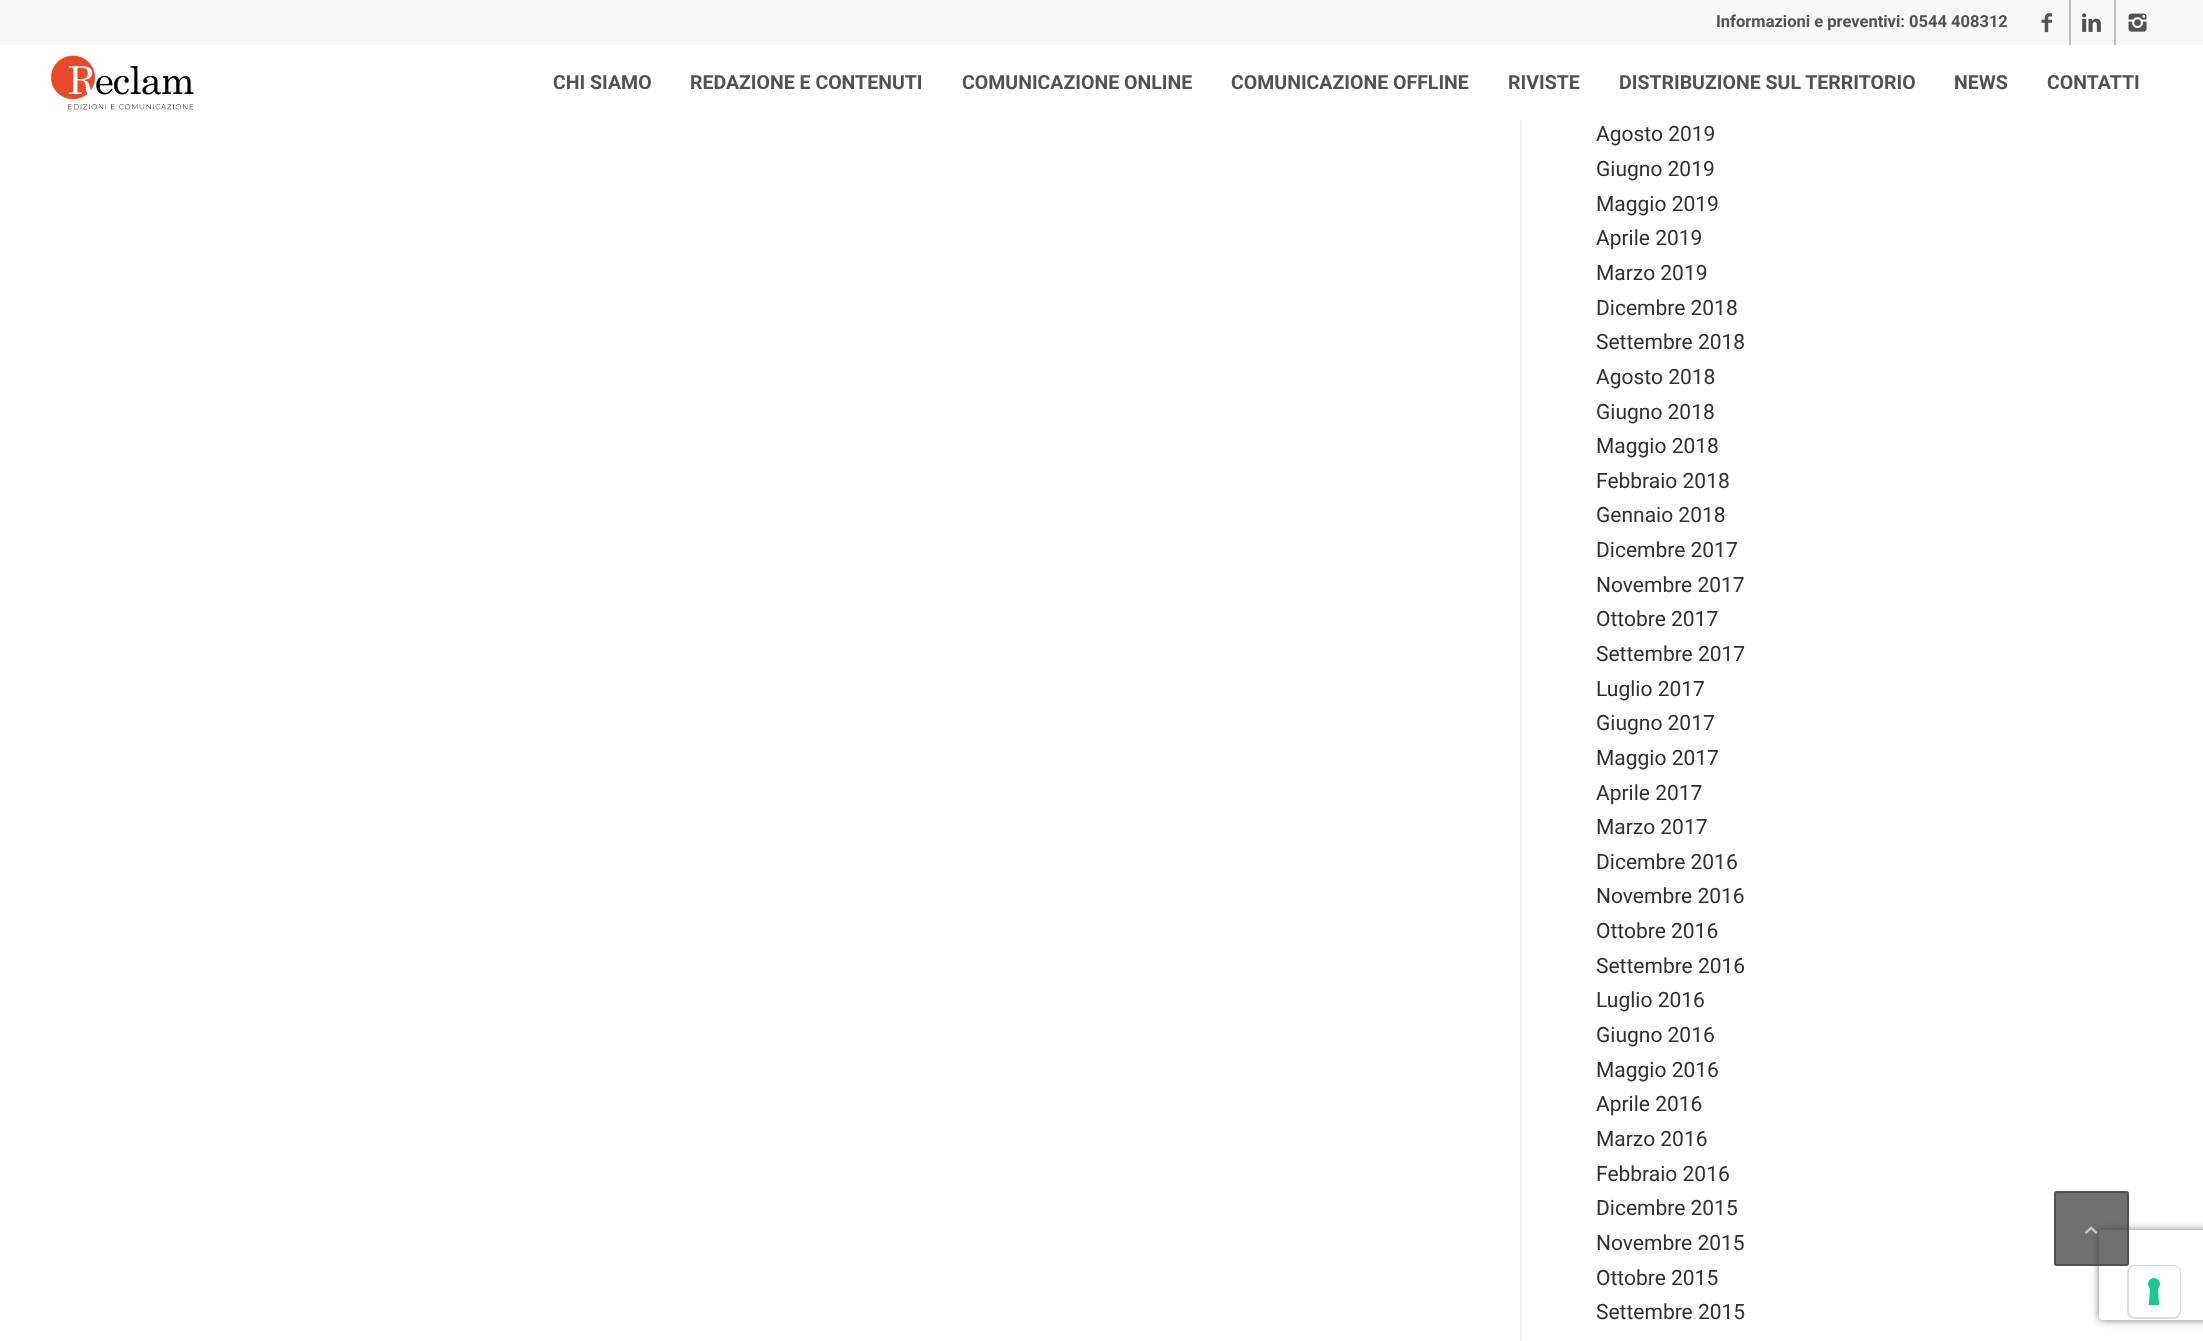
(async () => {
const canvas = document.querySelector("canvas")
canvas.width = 2203
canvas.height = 1341
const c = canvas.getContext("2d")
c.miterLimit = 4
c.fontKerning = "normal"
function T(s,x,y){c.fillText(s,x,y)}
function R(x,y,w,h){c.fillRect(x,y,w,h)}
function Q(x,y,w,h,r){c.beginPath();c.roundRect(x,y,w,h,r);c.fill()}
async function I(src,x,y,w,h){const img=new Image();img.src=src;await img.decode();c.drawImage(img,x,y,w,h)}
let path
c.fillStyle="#fff"
R(0,0,2203,1341)
c.fillStyle="#f8f8f8"
R(0,0,2203,45)
c.font="bold 16.5px Roboto"
c.fillStyle="#525252"
T("Informazioni e preventivi: 0544 408312",1716,27)
c.fillStyle="#bdbdbd"
R(2069,0,2,45)
await I("1.png",2041,13,11,20)
R(2114,0,2,45)
await I("2.png",2082,13,19,19)
await I("3.png",2128,13,19,19)
await I("4.png",51,55,143,55)
c.font="bold 19.5px Roboto"
c.fillStyle="#525252"
T("CHI SIAMO",553,89)
T("REDAZIONE E CONTENUTI",690,89)
T("COMUNICAZIONE ONLINE",962,89)
T("COMUNICAZIONE OFFLINE",1231,89)
T("RIVISTE",1508,89)
T("DISTRIBUZIONE SUL TERRITORIO",1619,89)
T("NEWS",1954,89)
T("CONTATTI",2047,89)
c.fillStyle="#f2f2f2"
R(1520,120,2,1221)
c.font="21px Roboto"
c.fillStyle="#303030"
T("Agosto 2019",1596,141)
T("Giugno 2019",1596,176)
T("Maggio 2019",1596,211)
T("Aprile 2019",1596,245)
T("Marzo 2019",1596,280)
T("Dicembre 2018",1596,315)
T("Settembre 2018",1596,349)
T("Agosto 2018",1596,384)
T("Giugno 2018",1596,419)
T("Maggio 2018",1596,453)
T("Febbraio 2018",1596,488)
T("Gennaio 2018",1596,522)
T("Dicembre 2017",1596,557)
T("Novembre 2017",1596,592)
T("Ottobre 2017",1596,626)
T("Settembre 2017",1596,661)
T("Luglio 2017",1596,696)
T("Giugno 2017",1596,730)
T("Maggio 2017",1596,765)
T("Aprile 2017",1596,800)
T("Marzo 2017",1596,834)
T("Dicembre 2016",1596,869)
T("Novembre 2016",1596,903)
T("Ottobre 2016",1596,938)
T("Settembre 2016",1596,973)
T("Luglio 2016",1596,1007)
T("Giugno 2016",1596,1042)
T("Maggio 2016",1596,1077)
T("Aprile 2016",1596,1111)
T("Marzo 2016",1596,1146)
T("Febbraio 2016",1596,1181)
T("Dicembre 2015",1596,1215)
T("Novembre 2015",1596,1250)
T("Ottobre 2015",1596,1285)
T("Settembre 2015",1596,1319)
c.save()
path = new Path2D("M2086 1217h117v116h-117zm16 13h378c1.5 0 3 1.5 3 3v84c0 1.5-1.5 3-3 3h-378c-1.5 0-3-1.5-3-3v-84c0-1.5 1.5-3 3-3z")
c.clip(path,"evenodd")
c.fillStyle="#808080"
c.filter="blur(4px)"
c.beginPath()
c.roundRect(2099,1230,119,90,3)
c.fill()
c.filter="none"
c.restore()
c.fillStyle="#333333b3"
Q(2054,1191,75,75,3)
c.beginPath()
c.roundRect(2055,1192,73,73,2)
c.strokeStyle="#444444b3"
c.lineWidth=2
c.stroke()
await I("5.png",2085,1226,13,8)
c.beginPath()
c.roundRect(2128,1266,52,52,7)
c.strokeStyle="#d9d9d9"
c.stroke()
c.fillStyle="#fff"
Q(2129,1266,51,51,6)
await I("6.png",2148,1278,12,27)
})()
